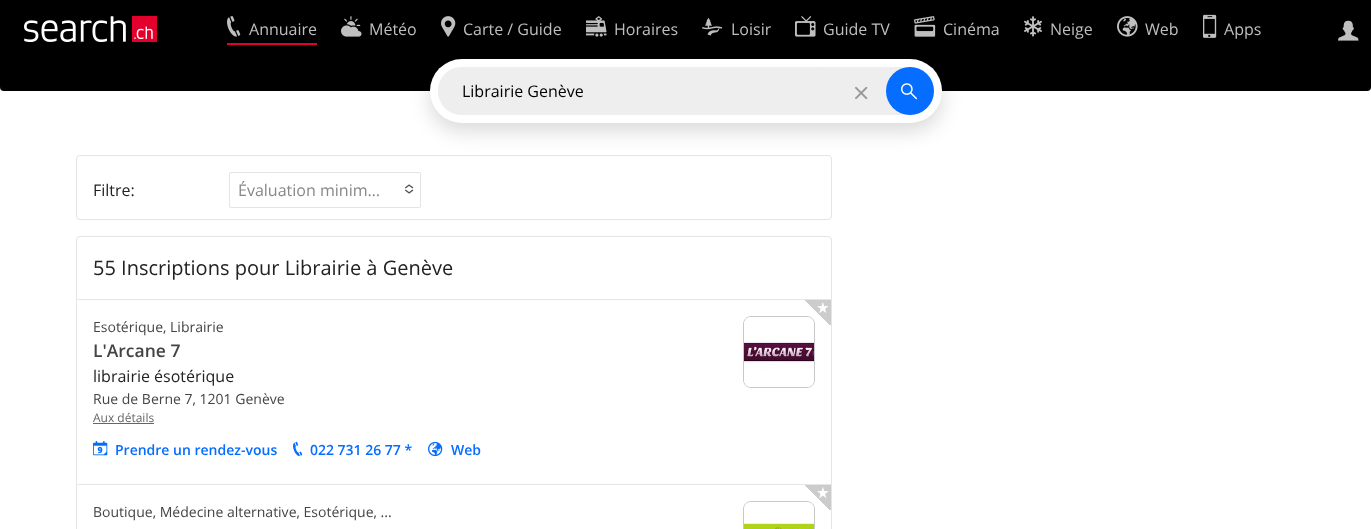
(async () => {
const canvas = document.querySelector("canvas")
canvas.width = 1371
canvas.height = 529
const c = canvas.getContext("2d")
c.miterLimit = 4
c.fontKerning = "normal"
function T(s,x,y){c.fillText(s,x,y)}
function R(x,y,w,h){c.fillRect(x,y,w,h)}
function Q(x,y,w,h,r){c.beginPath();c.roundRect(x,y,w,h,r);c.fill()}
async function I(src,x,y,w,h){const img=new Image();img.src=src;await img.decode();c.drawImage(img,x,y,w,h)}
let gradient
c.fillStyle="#fff"
R(0,0,1371,529)
c.fillStyle="#000"
R(0,0,1371,59)
await I("1.png",24,16,133,26)
c.fillStyle="#e4002c"
R(227,43,90,2)
await I("2.png",227,16,14,21)
c.font="16px Open Sans"
c.fillStyle="#bfbfbf"
T("Annuaire",249,35)
await I("3.png",341,16,21,21)
T("Météo",369,35)
await I("4.png",441,16,15,21)
T("Carte / Guide",463,35)
await I("5.png",586,16,21,21)
T("Horaires",614,35)
await I("6.png",702,17,21,19)
T("Loisir",731,35)
await I("7.png",795,16,21,21)
T("Guide TV",823,35)
await I("8.png",914,16,22,21)
T("Cinéma",943,35)
await I("9.png",1024,16,18,21)
T("Neige",1050,35)
await I("10.png",1117,16,21,21)
T("Web",1145,35)
await I("11.png",1203,14,14,24)
T("Apps",1224,35)
await I("12.png",1338,20,21,21)
c.fillStyle="#000"
c.beginPath()
c.roundRect(0,59,1371,32,[0,0,4,4])
c.fill()
c.beginPath()
c.roundRect(76.5,155.5,755,64,3.5)
c.strokeStyle="#e5e5e5"
c.stroke()
c.fillStyle="#00000026"
c.filter="blur(10px)"
c.beginPath()
c.roundRect(430,67,512,64,32)
c.fill()
c.filter="none"
c.fillStyle="#fff"
Q(430,59,512,64,32)
c.fillStyle="#eee"
Q(438,67,496,48,24)
Q(438,67,400,48,24)
c.fillStyle="#000"
T("Librairie Genève",462,97)
await I("13.png",855,86,13,14)
c.fillStyle="#056dff"
c.beginPath()
c.arc(910,91,24,0,7)
c.fill()
await I("14.png",901,83,16,17)
c.fillStyle="#222"
T("Filtre:",93,196)
c.beginPath()
c.roundRect(229.5,172.5,191,35,1.5)
c.strokeStyle="#e4e4e4"
c.stroke()
c.fillStyle="#888"
T("Évaluation minim…",238,196)
await I("15.png",405,184,9,10)
c.beginPath()
c.roundRect(76.5,236.5,755,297,3.5)
c.strokeStyle="#e5e5e5"
c.stroke()
c.font="20px Open Sans"
c.fillStyle="#222"
T("55 Inscriptions pour Librairie à Genève",93,275)
c.fillStyle="#e6e6e6"
R(77,299,754,1)
c.beginPath()
c.roundRect(743.5,316.5,71,71,7.5)
c.strokeStyle="#c8c8c8"
c.stroke()
await I("20.png",744,317,70,70)
gradient = c.createLinearGradient(805,326,831,300)
gradient.addColorStop(0,"#ffffff00")
gradient.addColorStop(.5,"#cccccc00")
gradient.addColorStop(.5,"#ccc")
gradient.addColorStop(1,"#ccc")
c.fillStyle = gradient
R(805,300,26,25)
await I("16.png",817,302,12,11)
c.font="14px Open Sans"
c.fillStyle="#444"
T("Esotérique, Librairie",93,332)
c.font="600 17.5px Open Sans"
T("L'Arcane 7",93,357)
c.font="16px Open Sans"
c.fillStyle="#222"
T("librairie ésotérique",93,382)
c.font="14px Open Sans"
c.fillStyle="#444"
T("Rue de Berne 7, 1201 Genève",93,404)
c.font="12px Open Sans"
c.fillStyle="#666"
T("Aux détails",93,422)
R(93,423,61,1)
await I("17.png",93,441,15,15)
c.font="600 14px Open Sans"
c.fillStyle="#056dff"
T("Prendre un rendez-vous",115,455)
await I("18.png",293,441,10,16)
T("022 731 26 77 *",310,455)
await I("19.png",428,441,15,16)
T("Web",451,455)
c.fillStyle="#e6e6e6"
R(77,484,754,1)
c.beginPath()
c.roundRect(743.5,501.5,71,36,7.5)
c.stroke()
await I("21.png",744,502,70,27)
gradient = c.createLinearGradient(805,511,831,485)
gradient.addColorStop(0,"#ffffff00")
gradient.addColorStop(.5,"#cccccc00")
gradient.addColorStop(.5,"#ccc")
gradient.addColorStop(1,"#ccc")
c.fillStyle = gradient
R(805,485,26,25)
await I("16.png",817,487,12,11)
c.font="14px Open Sans"
c.fillStyle="#444"
T("Boutique, Médecine alternative, Esotérique, ...",93,517)
})()
